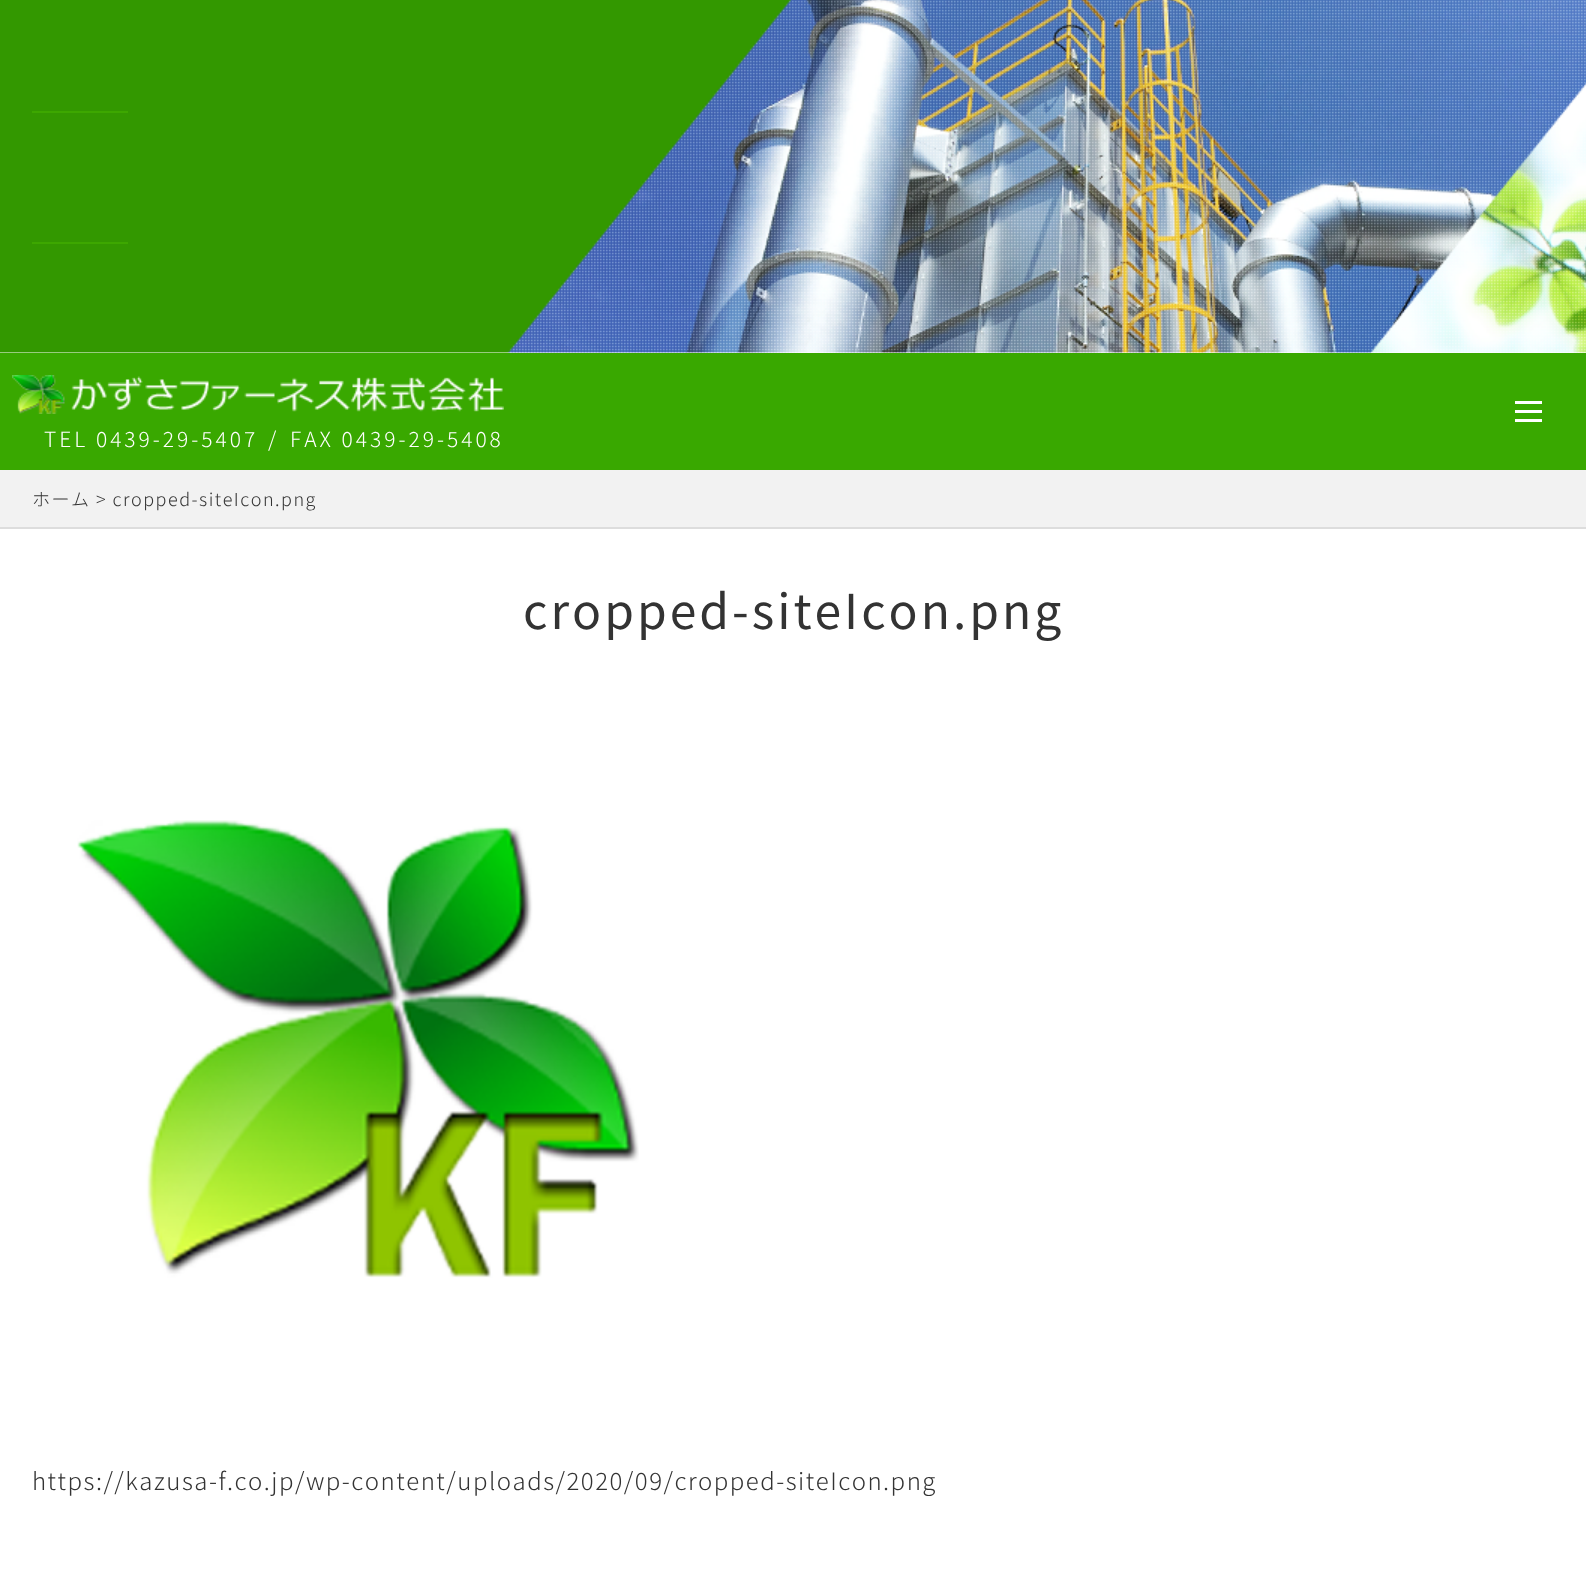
(async () => {
const canvas = document.querySelector("canvas")
canvas.width = 1586
canvas.height = 1584
const c = canvas.getContext("2d")
c.miterLimit = 4
c.fontKerning = "none"
function T(s,x,y){c.fillText(s,x,y)}
function R(x,y,w,h){c.fillRect(x,y,w,h)}
async function I(src,x,y,w,h){const img=new Image();img.src=src;await img.decode();c.drawImage(img,x,y,w,h)}
c.fillStyle="#fff"
R(0,0,1586,1584)
await I("1.png",0,0,1586,353)
c.fillStyle="#3da700"
R(32,111,96,2)
R(32,242,96,2)
c.fillStyle="#39a800"
R(0,353,1586,117)
c.fillStyle="#fff"
R(1515,410,27,3)
R(1515,401,27,3)
R(1515,419,27,3)
await I("2.png",12,375,492,39)
c.letterSpacing="3px"
c.font="300 21px Noto Sans JP"
T("TEL 0439-29-5407",44,447)
T("/",268,447)
T("FAX 0439-29-5408",290,447)
c.fillStyle="#f2f2f2"
R(0,470,1586,57)
c.fillStyle="#ddd"
R(0,527,1586,2)
c.letterSpacing="1.5px"
c.font="300 18px Noto Sans JP"
c.fillStyle="#333"
T("ホーム > cropped-siteIcon.png",32,506)
c.letterSpacing="3px"
c.font="48px Noto Sans JP"
T("cropped-siteIcon.png",523,629)
await I("3.png",77,820,562,458)
c.letterSpacing="1.5px"
c.font="300 24px Noto Sans JP"
T("https://kazusa-f.co.jp/wp-content/uploads/2020/09/cropped-siteIcon.png",32,1490)
})()
